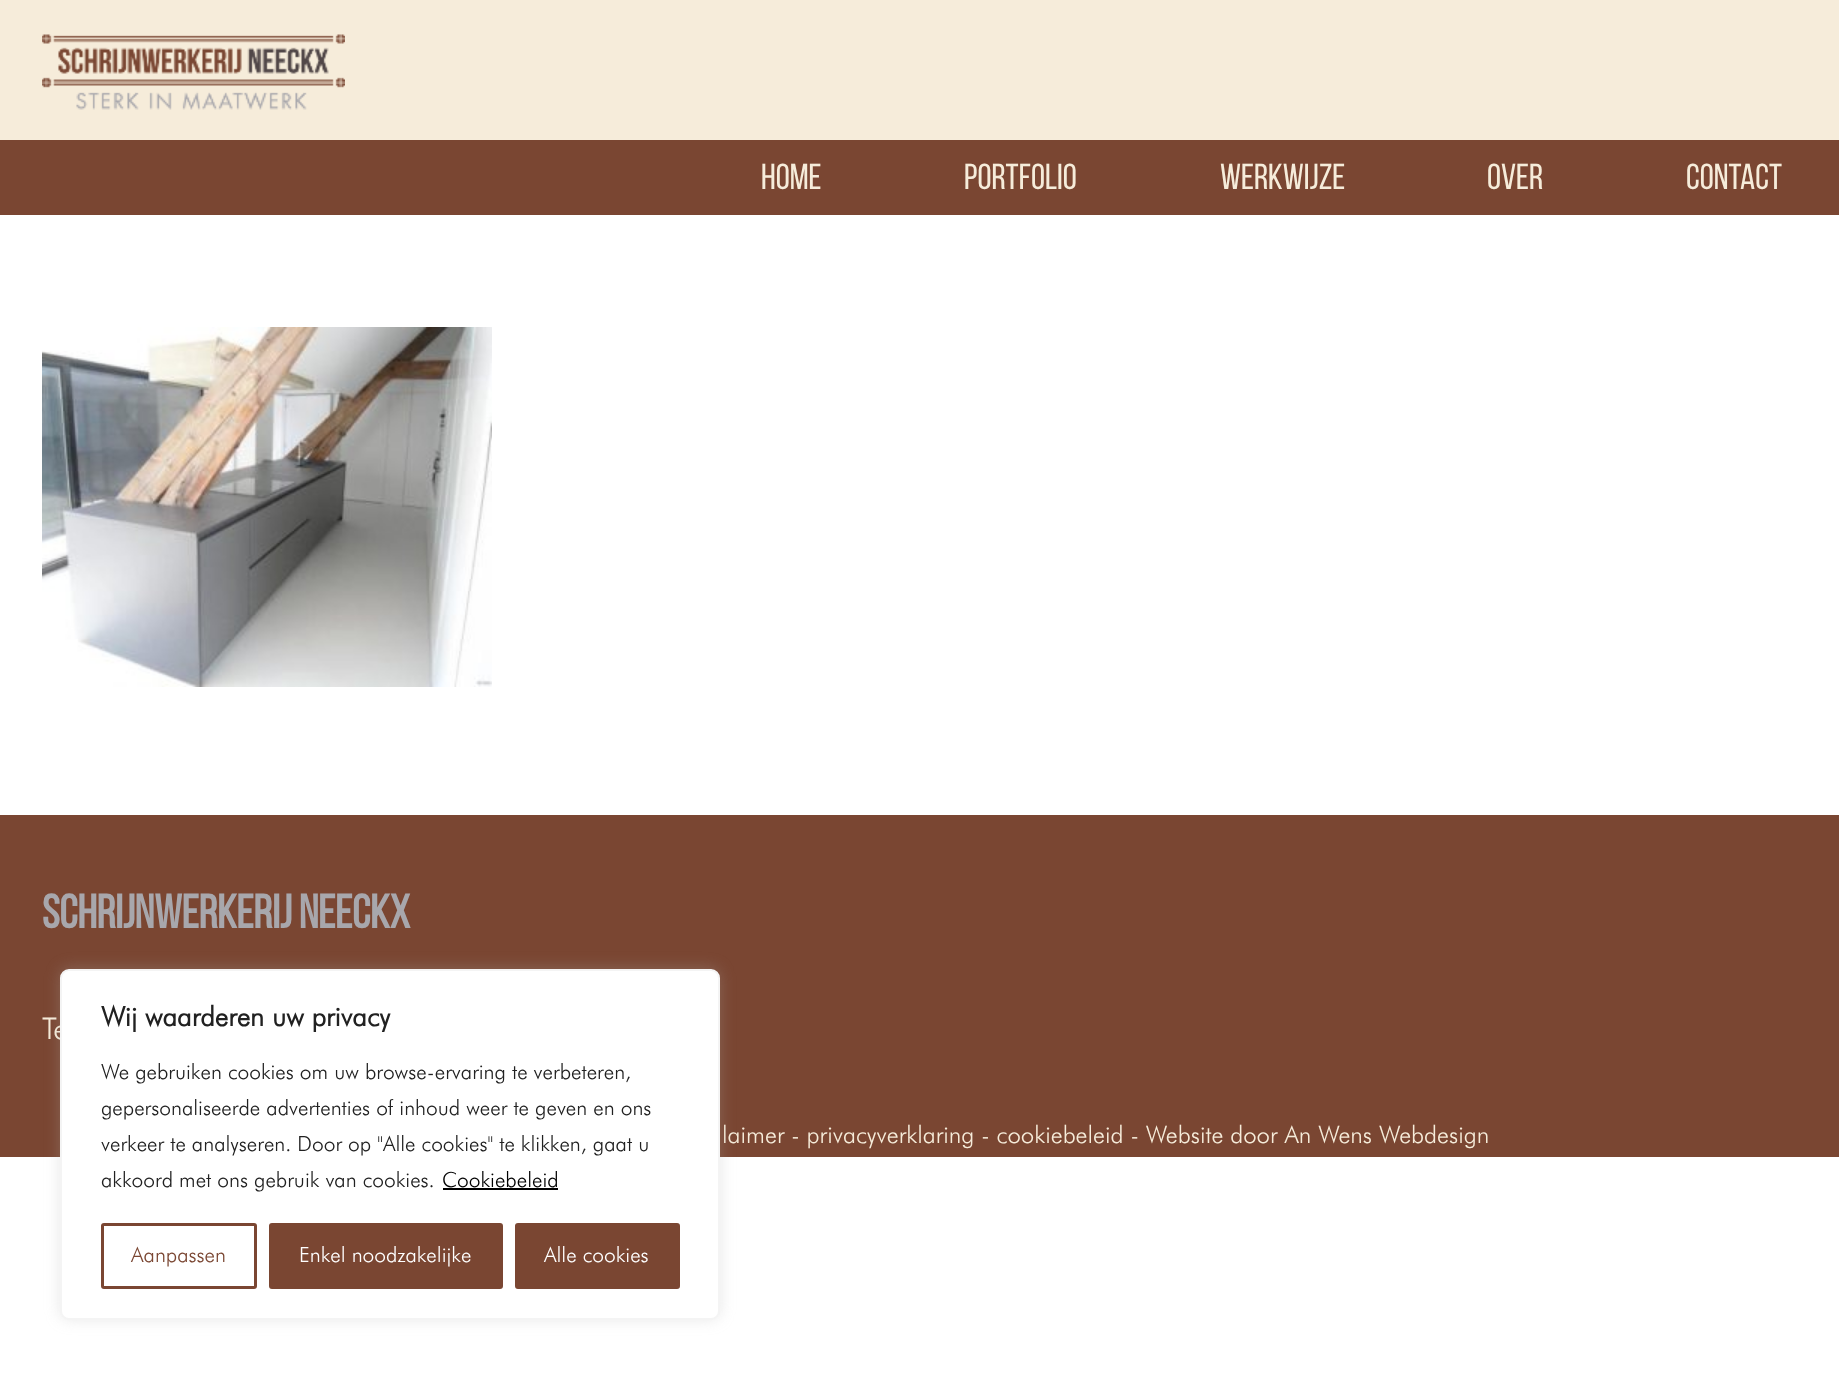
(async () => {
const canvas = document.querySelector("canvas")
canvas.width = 1839
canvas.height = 1379
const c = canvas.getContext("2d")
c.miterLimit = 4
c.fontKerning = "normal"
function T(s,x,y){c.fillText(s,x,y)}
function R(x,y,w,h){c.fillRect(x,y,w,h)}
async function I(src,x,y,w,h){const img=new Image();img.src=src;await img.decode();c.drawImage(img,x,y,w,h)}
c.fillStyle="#fff"
R(0,0,1839,1379)
c.fillStyle="#f6ecda"
R(0,0,1839,140)
await I("1.png",42,34,303,76)
c.fillStyle="#7a4632"
R(0,140,1839,75)
c.font="36px Bebas Neue"
c.fillStyle="#f6ecda"
T("HOME",761,189)
T("PORTFOLIO",964,189)
T("WERKWIJZE",1220,189)
T("OVER",1487,189)
T("CONTACT",1686,189)
await I("2.png",42,327,450,360)
c.fillStyle="#7a4632"
R(0,815,1839,342)
c.font="bold 47.25px Bebas Neue"
c.fillStyle="#a8a7ac"
T("Schrijnwerkerij Neeckx",42,928)
c.font="300 30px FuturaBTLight"
c.fillStyle="#f6ecda"
T("Te",42,1039)
c.font="300 24px FuturaBTLight"
T("laimer - privacyverklaring - cookiebeleid - Website door An Wens Webdesign",722,1143)
c.fillStyle="#acabab4d"
c.filter="blur(7.5px)"
c.beginPath()
c.roundRect(60,968,660,351,9)
c.fill()
c.filter="none"
c.fillStyle="#fff"
c.beginPath()
c.roundRect(61,970,658,349,8)
c.fill()
c.strokeStyle="#f4f4f4"
c.lineWidth=2
c.stroke()
c.font="bold 27px FuturaBTLight"
c.fillStyle="#212121"
T("Wij waarderen uw privacy",101,1026)
c.font="300 21px FuturaBTLight"
T("We gebruiken cookies om uw browse-ervaring te verbeteren,",101,1079)
T("gepersonaliseerde advertenties of inhoud weer te geven en ons",101,1115)
T("verkeer te analyseren. Door op \"Alle cookies\" te klikken, gaat u",101,1151)
T("akkoord met ons gebruik van cookies.",101,1187)
c.fillStyle="#000"
T("Cookiebeleid",442,1187)
R(443,1188,115,2)
c.beginPath()
c.roundRect(102.5,1224.5,153,63,1.5)
c.strokeStyle="#7a4632"
c.lineWidth=3
c.stroke()
c.fillStyle="#7a4632"
T("Aanpassen",131,1262)
c.beginPath()
c.roundRect(270.5,1224.5,231,63,1.5)
c.fill()
c.stroke()
c.fillStyle="#fff"
T("Enkel noodzakelijke",299,1262)
c.fillStyle="#7a4632"
c.beginPath()
c.roundRect(516.5,1224.5,162,63,1.5)
c.fill()
c.stroke()
c.fillStyle="#fff"
T("Alle cookies",544,1262)
})()
